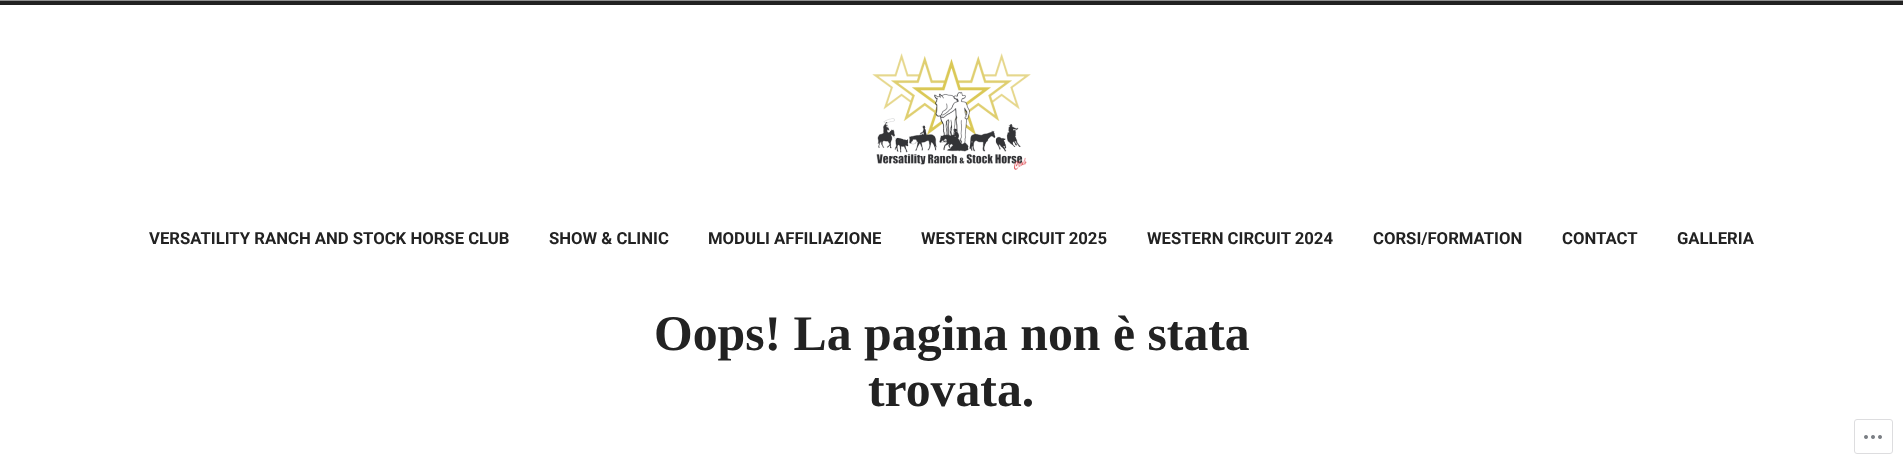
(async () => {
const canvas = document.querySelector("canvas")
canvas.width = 1903
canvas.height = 464
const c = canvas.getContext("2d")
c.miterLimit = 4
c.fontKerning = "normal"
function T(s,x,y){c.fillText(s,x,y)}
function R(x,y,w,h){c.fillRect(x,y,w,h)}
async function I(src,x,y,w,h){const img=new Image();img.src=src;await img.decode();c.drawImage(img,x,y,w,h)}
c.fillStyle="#fff"
R(0,0,1903,464)
c.fillStyle="#222"
R(0,1,1903,4)
c.fillStyle="#919191"
R(0,0,1903,1)
await I("1.png",872,53,159,117)
c.font="bold 16.7px Roboto"
c.fillStyle="#222"
T("VERSATILITY RANCH AND STOCK HORSE CLUB",149,244)
T("SHOW & CLINIC",549,244)
T("MODULI AFFILIAZIONE",708,244)
T("WESTERN CIRCUIT 2025",921,244)
T("WESTERN CIRCUIT 2024",1147,244)
T("CORSI/FORMATION",1373,244)
T("CONTACT",1562,244)
T("GALLERIA",1677,244)
c.font="bold 49.75px Liberation Serif"
T("Oops! La pagina non è stata",654,350)
T("trovata.",868,406)
c.beginPath()
c.roundRect(1854.5,419.5,38,34,2.5)
c.strokeStyle="#dddddf"
c.stroke()
await I("2.png",1864,435,18,4)
})()
